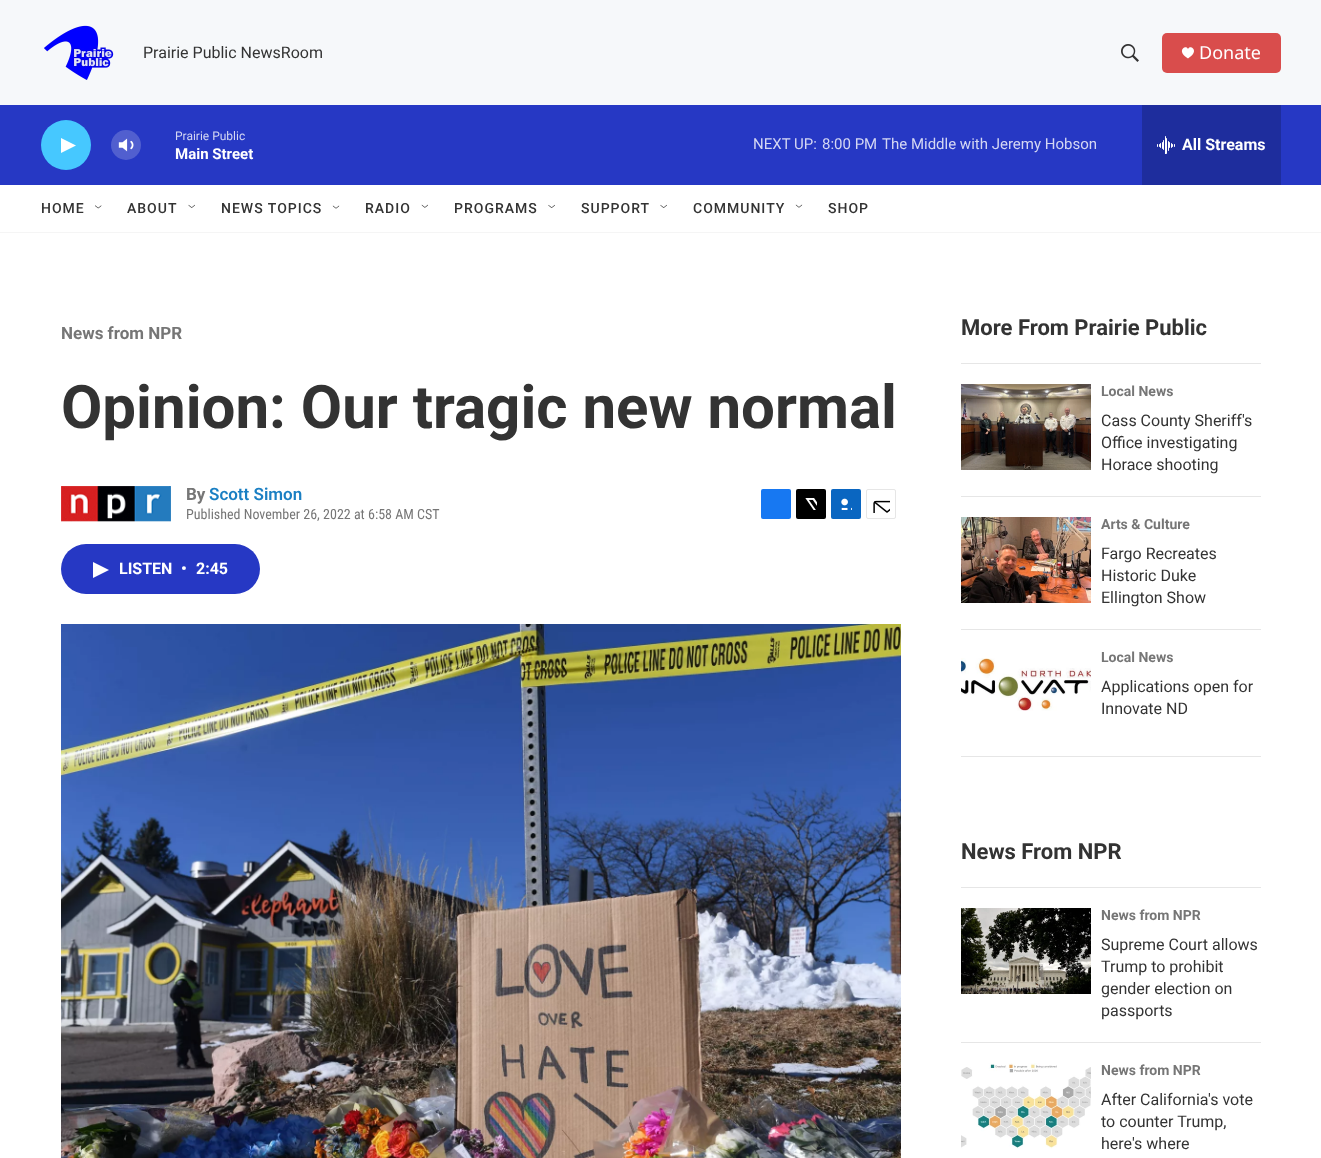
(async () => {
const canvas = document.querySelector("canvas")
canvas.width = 1321
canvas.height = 1158
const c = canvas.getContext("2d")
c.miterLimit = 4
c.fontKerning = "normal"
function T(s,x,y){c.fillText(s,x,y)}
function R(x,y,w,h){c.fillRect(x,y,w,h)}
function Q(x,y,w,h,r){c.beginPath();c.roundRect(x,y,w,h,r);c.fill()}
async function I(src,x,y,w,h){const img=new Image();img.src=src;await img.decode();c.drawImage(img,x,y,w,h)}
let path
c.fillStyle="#fff"
R(0,0,1321,1158)
c.fillStyle="#f6f8fa"
R(0,0,1321,105)
c.fillStyle="#f5f5f5"
R(0,232,1321,1)
await I("1.png",44,25,70,55)
c.font="16px Roboto"
c.fillStyle="#333"
T("Prairie Public NewsRoom",143,58)
await I("2.png",1121,44,18,18)
c.fillStyle="#d94d4c"
Q(1162,33,119,40,5)
c.fillStyle="#fff"
path = new Path2D("M1188 49c-2-5-12.5 2 0 9.5c12.5-7.5 2-14.5 0-9.5z")
c.fill(path)
c.font="18px Noto Sans"
T("Donate",1199,59)
c.fillStyle="#2638c4"
R(0,105,1321,80)
c.fillStyle="#46c8ff"
c.beginPath()
c.arc(66,145,25,0,7)
c.fill()
c.fillStyle="#fff"
path = new Path2D("M61 138l15 7.5l-15 7.5z")
c.fill(path)
await I("3.png",118,138,16,14)
c.fillStyle="#ffffff33"
c.beginPath()
c.arc(126,145,15,0,7)
c.fill()
c.font="12px Roboto"
c.fillStyle="#d4d7f3"
T("Prairie Public",175,140)
c.font="bold 15px 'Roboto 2'"
c.fillStyle="#fff"
T("Main Street",175,159)
c.font="15px Roboto"
c.fillStyle="#d4d7f3"
T("NEXT UP:",753,149)
T("8:00 PM",822,149)
T("The Middle with Jeremy Hobson",882,149)
c.fillStyle="#1e2d9d"
R(1142,105,139,80)
await I("4.png",1157,136,18,18)
c.font="bold 16px 'Roboto 2'"
c.fillStyle="#fff"
T("All Streams",1182,150)
c.letterSpacing="1px"
c.font="500 14px Roboto"
c.fillStyle="#333"
T("HOME",41,213)
await I("5.png",95,205,7,4)
T("ABOUT",127,213)
await I("6.png",188,204,7,4)
T("NEWS TOPICS",221,213)
await I("7.png",332,205,8,4)
T("RADIO",365,213)
await I("8.png",421,204,7,4)
T("PROGRAMS",454,213)
await I("9.png",548,204,7,4)
T("SUPPORT",581,213)
await I("10.png",660,204,7,4)
T("COMMUNITY",693,213)
await I("11.png",795,204,8,4)
T("SHOP",828,213)
c.letterSpacing="0px"
c.font="bold 17px Roboto"
c.fillStyle="#767676"
T("News from NPR",61,339)
c.font="bold 60px Roboto"
c.fillStyle="#333"
T("Opinion: Our tragic new normal",61,428)
await I("12.png",61,486,110,36)
c.font="bold 17px Roboto"
c.fillStyle="#767676"
T("By",186,500)
c.font="600 17px Roboto"
c.fillStyle="#1a7fc3"
T("Scott Simon",209,500)
c.font="14px Roboto Condensed"
c.fillStyle="#767676"
T("Published November 26, 2022 at 6:58 AM CST",186,519)
c.fillStyle="#1778f2"
Q(761,489,30,30,2)
c.fillStyle="#000"
Q(796,489,30,30,2)
await I("13.png",805,498,12,12)
c.fillStyle="#0a66c1"
Q(831,489,30,30,2)
await I("14.png",841,498,11,12)
c.beginPath()
c.roundRect(866.5,489.5,29,29,1.5)
c.strokeStyle="#e6e6e6"
c.stroke()
await I("15.png",873,500,17,13)
c.fillStyle="#2638c4"
Q(61,544,199,50,25)
c.fillStyle="#fff"
path = new Path2D("M93 562l16 8l-16 8z")
c.fill(path)
c.font="bold 16px 'Roboto 2'"
T("LISTEN",119,574)
T("•",181,574)
T("2:45",196,574)
await I("16.png",61,624,840,534)
c.fillStyle="#e6e6e6"
R(961,363,300,1)
c.font="bold 22px Roboto"
c.fillStyle="#333"
T("More From Prairie Public",961,335)
c.fillStyle="#e6e6e6"
R(961,496,300,1)
await I("17.png",961,384,130,86)
c.font="bold 14px Roboto"
c.fillStyle="#767676"
T("Local News",1101,396)
c.font="16px Roboto"
c.fillStyle="#333"
T("Cass County Sheriff's",1101,426)
T("Office investigating",1101,448)
T("Horace shooting",1101,470)
c.fillStyle="#e6e6e6"
R(961,629,300,1)
await I("18.png",961,517,130,86)
c.font="bold 14px Roboto"
c.fillStyle="#767676"
T("Arts & Culture",1101,529)
c.font="16px Roboto"
c.fillStyle="#333"
T("Fargo Recreates",1101,559)
T("Historic Duke",1101,581)
T("Ellington Show",1101,603)
c.fillStyle="#e6e6e6"
R(961,756,300,1)
await I("19.png",961,658,130,53)
c.font="bold 14px Roboto"
c.fillStyle="#767676"
T("Local News",1101,662)
c.font="16px Roboto"
c.fillStyle="#333"
T("Applications open for",1101,692)
T("Innovate ND",1101,714)
c.fillStyle="#e6e6e6"
R(961,887,300,1)
c.font="bold 22px Roboto"
c.fillStyle="#333"
T("News From NPR",961,859)
c.fillStyle="#e6e6e6"
R(961,1042,300,1)
await I("20.png",961,908,130,86)
c.font="bold 14px Roboto"
c.fillStyle="#767676"
T("News from NPR",1101,920)
c.font="16px Roboto"
c.fillStyle="#333"
T("Supreme Court allows",1101,950)
T("Trump to prohibit",1101,972)
T("gender election on",1101,994)
T("passports",1101,1016)
await I("21.png",961,1063,130,86)
c.font="bold 14px Roboto"
c.fillStyle="#767676"
T("News from NPR",1101,1075)
c.font="16px Roboto"
c.fillStyle="#333"
T("After California's vote",1101,1105)
T("to counter Trump,",1101,1127)
T("here's where",1101,1149)
})()
